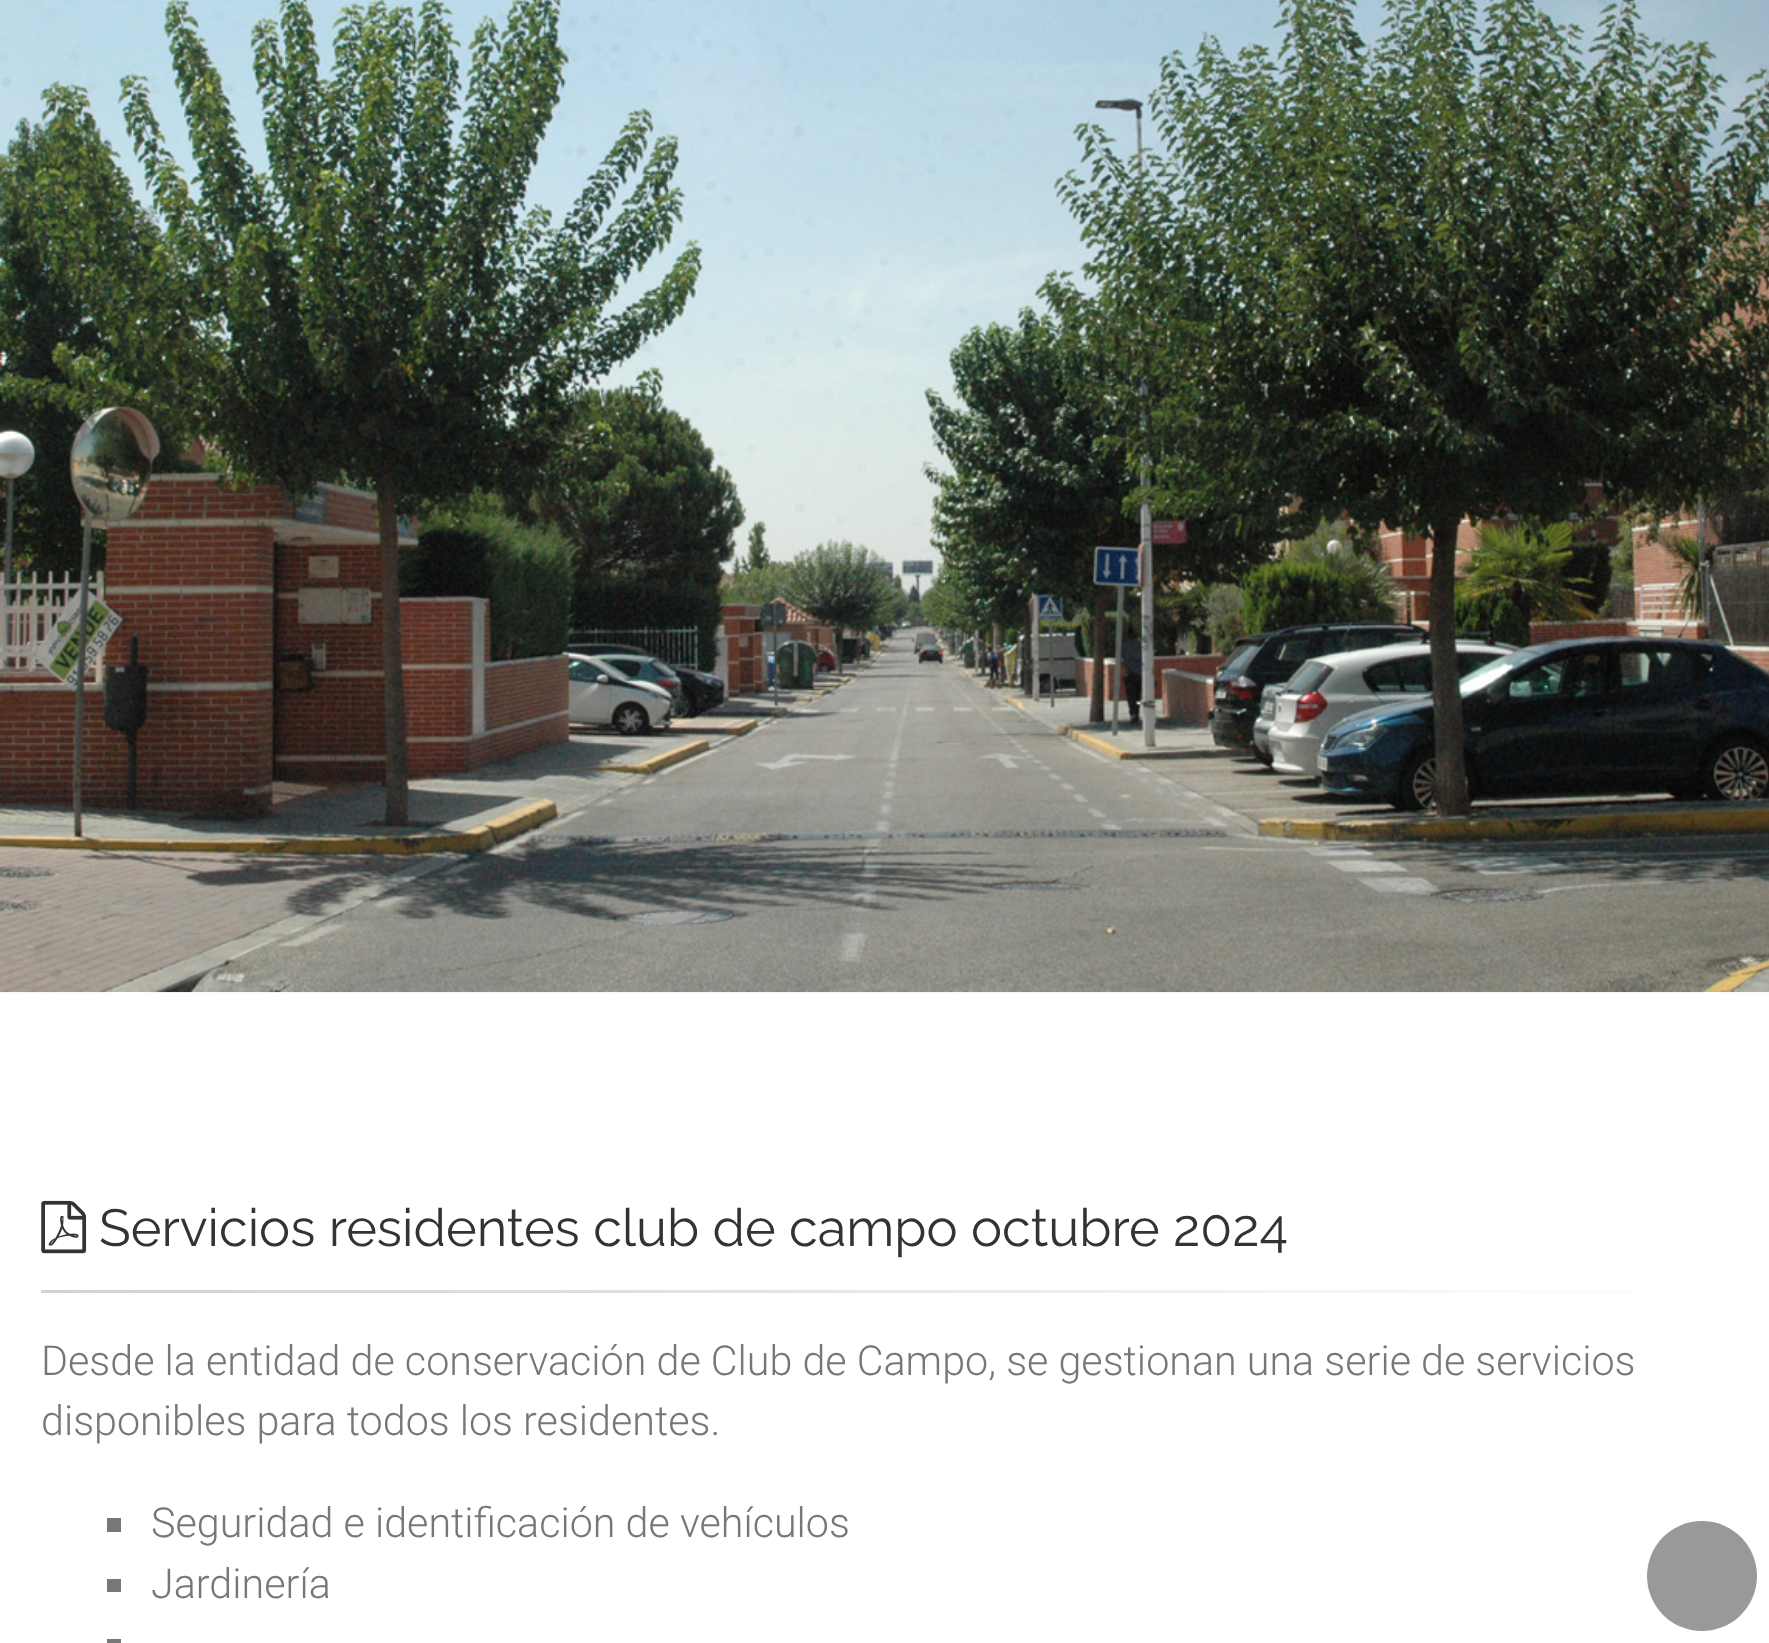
(async () => {
const canvas = document.querySelector("canvas")
canvas.width = 1769
canvas.height = 1643
const c = canvas.getContext("2d")
c.miterLimit = 4
c.fontKerning = "normal"
function T(s,x,y){c.fillText(s,x,y)}
function R(x,y,w,h){c.fillRect(x,y,w,h)}
async function I(src,x,y,w,h){const img=new Image();img.src=src;await img.decode();c.drawImage(img,x,y,w,h)}
let gradient
c.fillStyle="#fff"
R(0,0,1769,1643)
await I("1.png",0,0,1769,993)
await I("2.png",41,1200,46,54)
c.font="52.25px Raleway"
c.fillStyle="#333"
T("Servicios residentes club de campo octubre 2024",99,1246)
gradient = c.createLinearGradient(41,1291,1730,1291)
gradient.addColorStop(0,"#d1d1d1")
gradient.addColorStop(.35,"#e0e0e0")
gradient.addColorStop(.7,"#f2f2f2")
gradient.addColorStop(1,"#fff")
c.fillStyle = gradient
R(41,1290,1592,3)
c.font="300 41.25px Roboto"
c.fillStyle="#777"
T("Desde la entidad de conservación de Club de Campo, se gestionan una serie de servicios",41,1375)
T("disponibles para todos los residentes.",41,1435)
R(107,1518,14,14)
T("Seguridad e identificación de vehículos",151,1537)
R(107,1579,14,13)
T("Jardinería",151,1598)
R(107,1639,14,4)
c.fillStyle="#999"
c.beginPath()
c.arc(1702,1576,55,0,7)
c.fill()
})()
